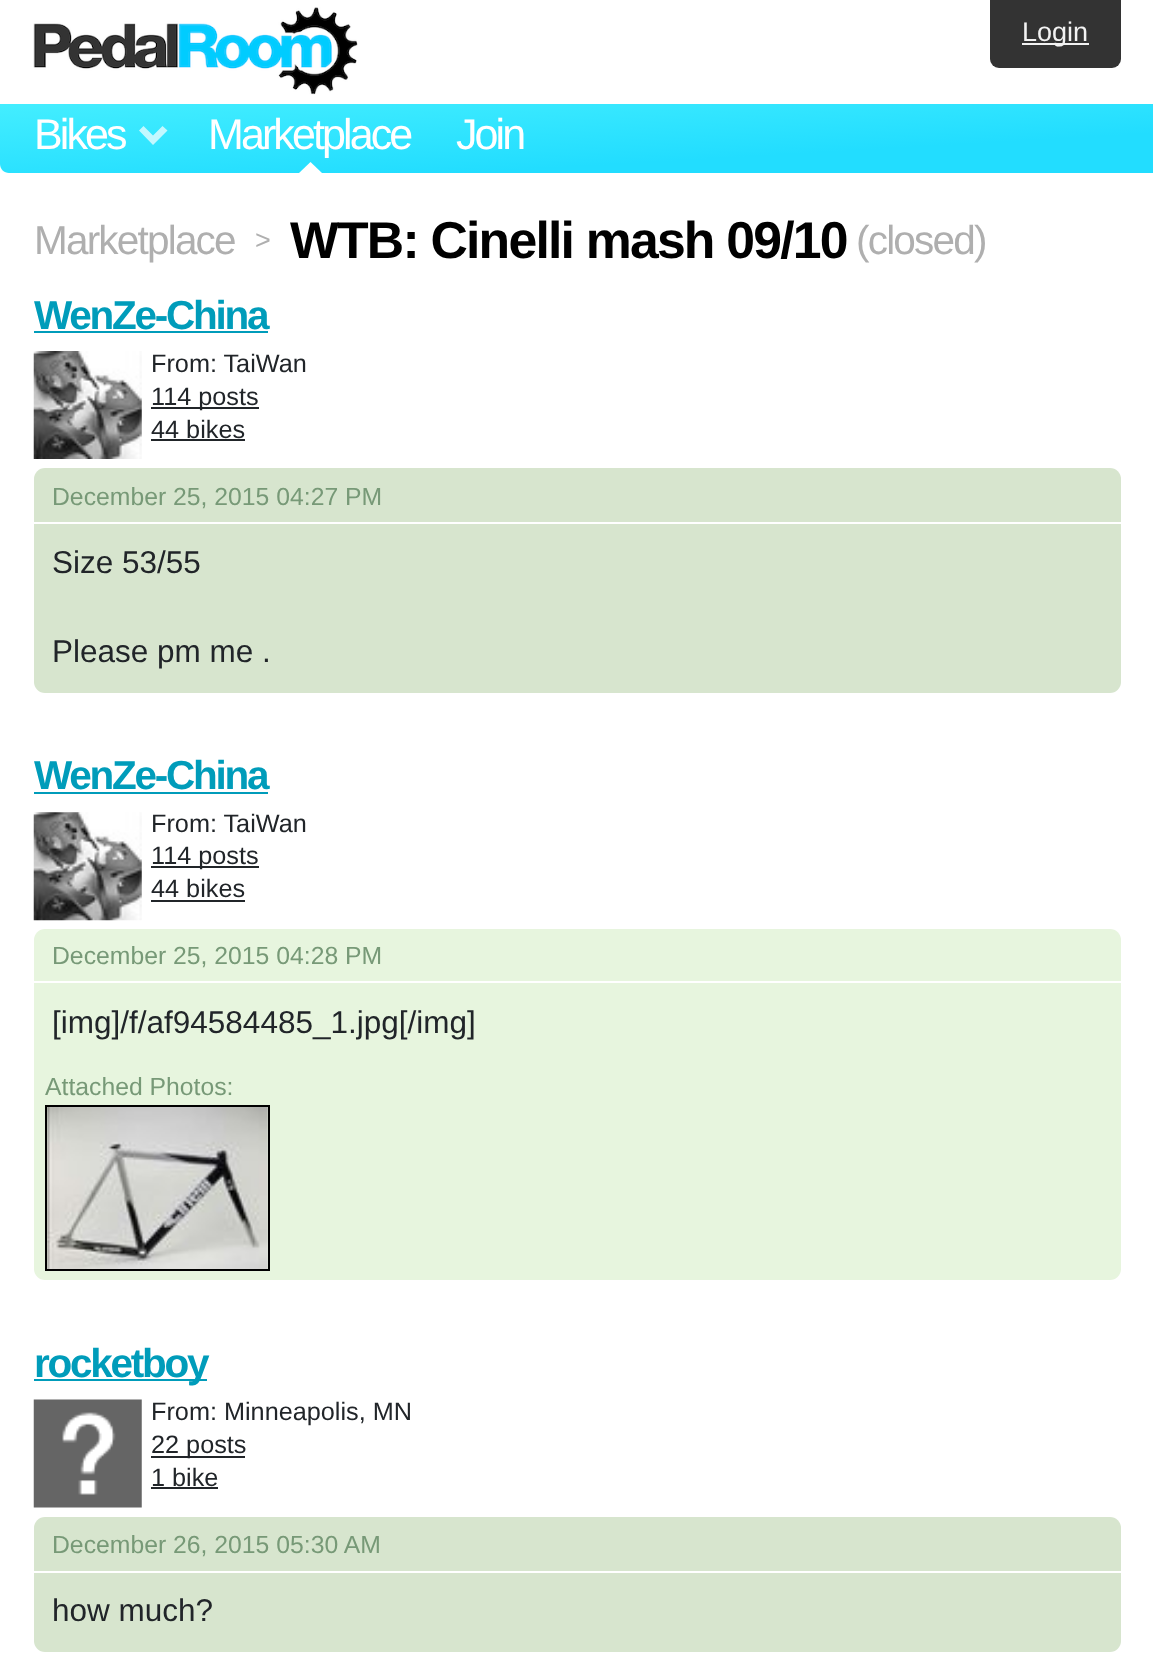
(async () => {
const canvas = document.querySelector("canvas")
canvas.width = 1153
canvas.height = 1679
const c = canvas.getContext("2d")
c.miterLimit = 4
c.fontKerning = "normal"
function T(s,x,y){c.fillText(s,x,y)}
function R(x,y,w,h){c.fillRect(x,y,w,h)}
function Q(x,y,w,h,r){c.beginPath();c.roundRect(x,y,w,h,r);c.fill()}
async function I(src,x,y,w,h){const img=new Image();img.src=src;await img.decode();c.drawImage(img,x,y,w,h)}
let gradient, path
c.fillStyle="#fff"
R(0,0,1153,1679)
await I("1.png",33,7,325,88)
c.fillStyle="#333"
c.beginPath()
c.roundRect(990,0,131,68,[0,0,9,9])
c.fill()
c.fillStyle="#f2f2f2"
R(1022,43,67,2)
c.font="27px Liberation Sans"
T("Login",1022,41)
gradient = c.createLinearGradient(573,69,581,208)
gradient.addColorStop(0,"#4ef")
gradient.addColorStop(.7,"#2df")
c.fillStyle = gradient
path = new Path2D("M0 104h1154v69h-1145c-5 0-9-4-9-9z")
c.fill(path)
c.letterSpacing="-2.9px"
c.font="43px Liberation Sans"
c.fillStyle="#fff"
T("Bikes",34,149)
c.fillStyle="#ffffffb3"
path = new Path2D("M167.5 130.5l-14.5 14.5v-9.5l9.5-9.5zm-14.5 14.5l-14-14.5l4.5-4.5l9.5 9.5z")
c.fill(path)
c.fillStyle="#fff"
T("Marketplace",208,149)
path = new Path2D("M322 173h-23l11.5-11z")
c.fill(path)
T("Join",456,149)
c.letterSpacing="-1.8px"
c.font="40.5px Liberation Sans"
c.fillStyle="#afafaf"
T("Marketplace",34,254)
c.font="27px Liberation Sans"
T(">",255,249)
c.font="bold 51.75px Liberation Sans"
c.fillStyle="#000"
T("WTB: Cinelli mash 09/10",290,258)
c.font="40.5px Liberation Sans"
c.fillStyle="#afafaf"
T("(closed)",856,254)
c.letterSpacing="-2.25px"
c.font="bold 40.5px Liberation Sans"
c.fillStyle="#009cba"
T("WenZe-China",34,329)
R(34,331,234,2)
await I("2.png",33,351,109,108)
c.letterSpacing="0px"
c.font="25.25px Liberation Sans"
c.fillStyle="#212529"
T("From: TaiWan",151,372)
R(151,407,108,2)
T("114 posts",151,405)
T("44 bikes",151,438)
R(151,439,94,2)
c.fillStyle="#d7e5ce"
Q(34,468,1087,225,11)
c.fillStyle="#fff"
R(34,522,1087,2)
c.font="24.75px Liberation Sans"
c.fillStyle="#797"
T("December 25, 2015 04:27 PM",52,505)
c.font="31.5px Liberation Sans"
c.fillStyle="#212529"
T("Size 53/55",52,573)
T("Please pm me .",52,662)
c.letterSpacing="-2.25px"
c.font="bold 40.5px Liberation Sans"
c.fillStyle="#009cba"
T("WenZe-China",34,789)
R(34,792,234,2)
await I("3.png",33,812,109,109)
c.letterSpacing="0px"
c.font="25.25px Liberation Sans"
c.fillStyle="#212529"
T("From: TaiWan",151,832)
R(151,866,108,2)
T("114 posts",151,864)
T("44 bikes",151,897)
R(151,900,94,2)
c.fillStyle="#e7f5de"
Q(34,929,1087,351,11)
c.fillStyle="#fff"
R(34,981,1087,2)
c.font="24.75px Liberation Sans"
c.fillStyle="#797"
T("December 25, 2015 04:28 PM",52,964)
c.font="31.5px Liberation Sans"
c.fillStyle="#212529"
T("[img]/f/af94584485_1.jpg[/img]",52,1033)
c.font="24.75px Liberation Sans"
c.fillStyle="#797"
T("Attached Photos:",45,1095)
c.strokeStyle="#000"
c.lineWidth=2
c.strokeRect(46,1106,223,164)
await I("4.png",47,1107,221,162)
c.fillStyle="#009cba"
R(34,1379,173,2)
c.letterSpacing="-2.25px"
c.font="bold 40.5px Liberation Sans"
T("rocketboy",34,1377)
await I("5.png",33,1399,109,109)
c.letterSpacing="0px"
c.font="25.25px Liberation Sans"
c.fillStyle="#212529"
T("From: Minneapolis, MN",151,1420)
R(151,1456,94,2)
T("22 posts",151,1453)
T("1 bike",151,1486)
R(151,1487,67,2)
c.fillStyle="#d7e5ce"
Q(34,1517,1087,135,11)
c.fillStyle="#fff"
R(34,1571,1087,2)
c.font="24.75px Liberation Sans"
c.fillStyle="#797"
T("December 26, 2015 05:30 AM",52,1553)
c.font="31.5px Liberation Sans"
c.fillStyle="#212529"
T("how much?",52,1621)
})()
